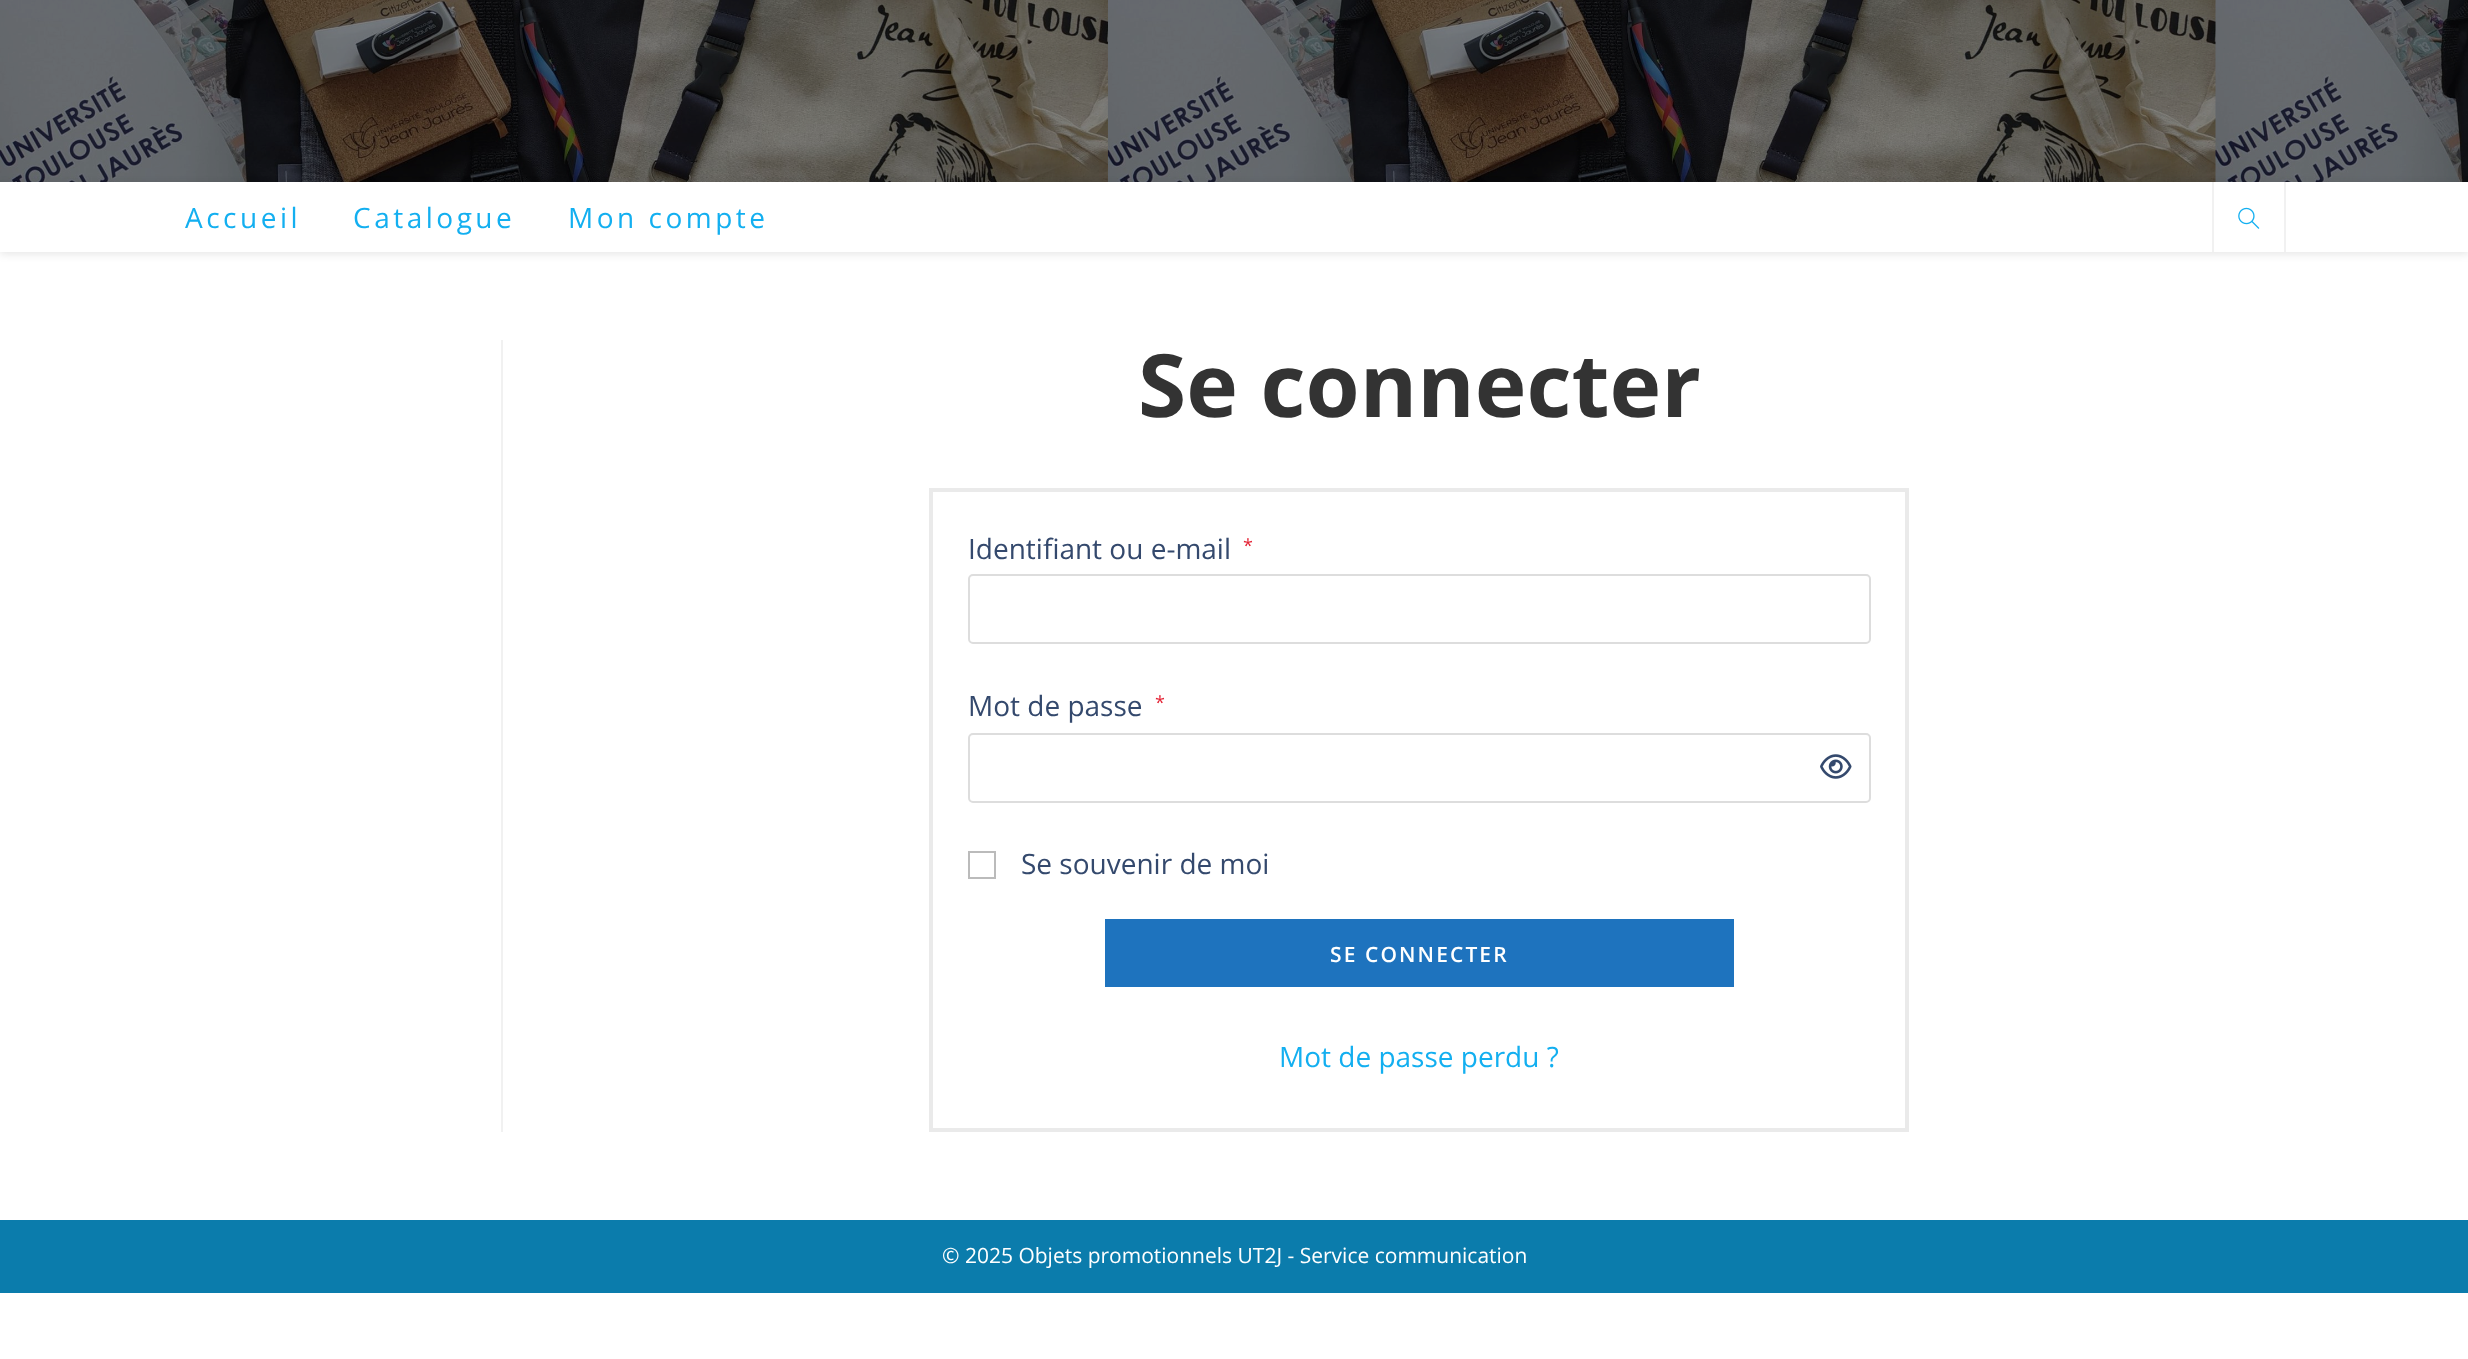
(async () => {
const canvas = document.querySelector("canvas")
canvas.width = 2468
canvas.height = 1359
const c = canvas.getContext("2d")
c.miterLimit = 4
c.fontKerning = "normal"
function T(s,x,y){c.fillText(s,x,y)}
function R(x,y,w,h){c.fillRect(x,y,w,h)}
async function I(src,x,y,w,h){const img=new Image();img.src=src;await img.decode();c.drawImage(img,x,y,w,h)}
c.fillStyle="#fff"
R(0,0,2468,1359)
await I("1.png",0,0,2468,182)
c.fillStyle="#0000001a"
c.filter="blur(4.5px)"
c.beginPath()
c.rect(0,184,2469,70)
c.fill()
c.filter="none"
c.fillStyle="#fff"
R(0,182,2468,70)
c.letterSpacing="3.5px"
c.font="28px Open Sans"
c.fillStyle="#13aff0"
T("Accueil",185,228)
T("Catalogue",353,228)
T("Mon compte",568,228)
c.fillStyle="#f1f1f1"
R(2284,182,2,70)
R(2212,182,2,70)
await I("2.png",2238,207,22,22)
R(501,340,2,792)
c.letterSpacing="0px"
c.font="bold 87.5px Open Sans"
c.fillStyle="#333"
T("Se connecter",1138,417)
c.strokeStyle="#eaeaea"
c.lineWidth=4
c.strokeRect(931,490,976,640)
c.font="28px Open Sans"
c.fillStyle="#34496d"
T("Identifiant ou e-mail",968,559)
c.font="18px Open Sans"
c.fillStyle="#e42234"
T("*",1243,552)
c.beginPath()
c.roundRect(969,575,901,68,4)
c.strokeStyle="#ddd"
c.lineWidth=2
c.stroke()
c.font="28px Open Sans"
c.fillStyle="#34496d"
T("Mot de passe",968,716)
c.font="18px Open Sans"
c.fillStyle="#e42234"
T("*",1155,709)
c.beginPath()
c.roundRect(969,734,901,68,4)
c.stroke()
await I("3.png",1820,754,32,25)
c.strokeStyle="#bbb"
c.strokeRect(969,852,26,26)
c.font="28px Open Sans"
c.fillStyle="#34496d"
T("Se souvenir de moi",1021,874)
c.fillStyle="#1e73be"
R(1105,919,629,68)
c.letterSpacing="2.1px"
c.font="600 21px Open Sans"
c.fillStyle="#fff"
T("SE CONNECTER",1330,962)
c.letterSpacing="0px"
c.font="28px Open Sans"
c.fillStyle="#13aff0"
T("Mot de passe perdu ?",1279,1067)
c.fillStyle="#0b7cac"
R(0,1220,2468,73)
c.font="21px Open Sans"
c.fillStyle="#fff"
T("© 2025 Objets promotionnels UT2J - Service communication",942,1263)
})()
